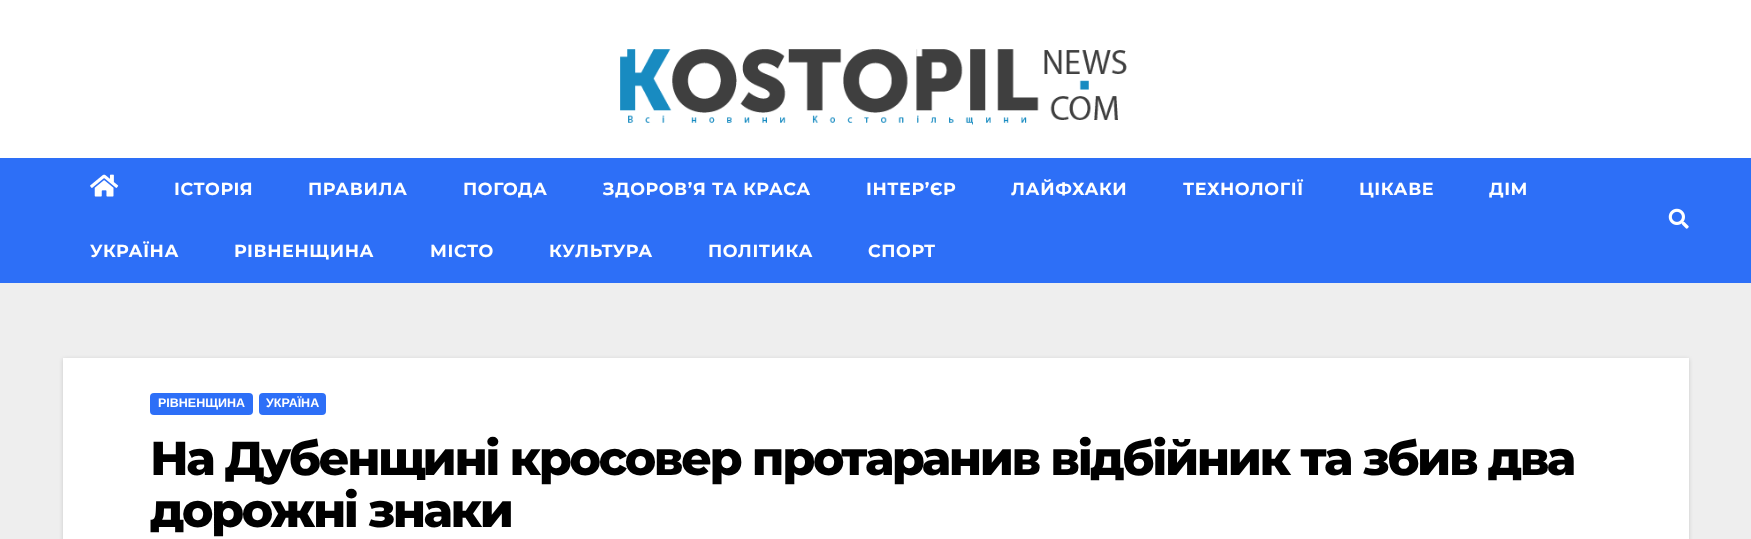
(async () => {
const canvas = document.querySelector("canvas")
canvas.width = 1751
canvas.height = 539
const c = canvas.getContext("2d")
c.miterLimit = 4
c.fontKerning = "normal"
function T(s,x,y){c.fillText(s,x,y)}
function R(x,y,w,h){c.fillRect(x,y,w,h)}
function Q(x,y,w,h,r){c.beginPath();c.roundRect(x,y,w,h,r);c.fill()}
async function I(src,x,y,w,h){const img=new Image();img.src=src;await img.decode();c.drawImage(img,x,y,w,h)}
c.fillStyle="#eee"
R(0,0,1751,539)
c.fillStyle="#fff"
R(0,0,1751,158)
await I("1.png",620,49,507,76)
c.fillStyle="#2d6ff7"
R(0,158,1751,125)
await I("2.png",90,174,29,23)
c.letterSpacing="0.6px"
c.font="bold 17.5px Montserrat"
c.fillStyle="#fff"
T("ІСТОРІЯ",174,195)
T("ПРАВИЛА",308,195)
T("ПОГОДА",463,195)
T("ЗДОРОВ’Я ТА КРАСА",603,195)
T("ІНТЕР’ЄР",866,195)
T("ЛАЙФХАКИ",1011,195)
T("ТЕХНОЛОГІЇ",1183,195)
T("ЦІКАВЕ",1359,195)
T("ДІМ",1489,195)
T("УКРАЇНА",90,257)
T("РІВНЕНЩИНА",234,257)
T("МІСТО",430,257)
T("КУЛЬТУРА",549,257)
T("ПОЛІТИКА",708,257)
T("СПОРТ",868,257)
await I("3.png",1668,208,21,21)
c.fillStyle="#00000026"
c.filter="blur(2px)"
c.beginPath()
c.rect(63,359,1626,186)
c.fill()
c.filter="none"
c.fillStyle="#fff"
R(63,358,1626,181)
c.fillStyle="#2d6ff7"
Q(150,393,103,22,4)
c.letterSpacing="0px"
c.font="bold 12.5px Liberation Sans"
c.fillStyle="#fff"
T("РІВНЕНЩИНА",158,407)
c.fillStyle="#2d6ff7"
Q(259,393,67,22,4)
c.fillStyle="#fff"
T("УКРАЇНА",266,407)
c.letterSpacing="-2.38px"
c.font="800 47.5px Montserrat"
c.fillStyle="#000"
T("На Дубенщині кросовер протаранив відбійник та збив два",150,475)
T("дорожні знаки",150,527)
})()
